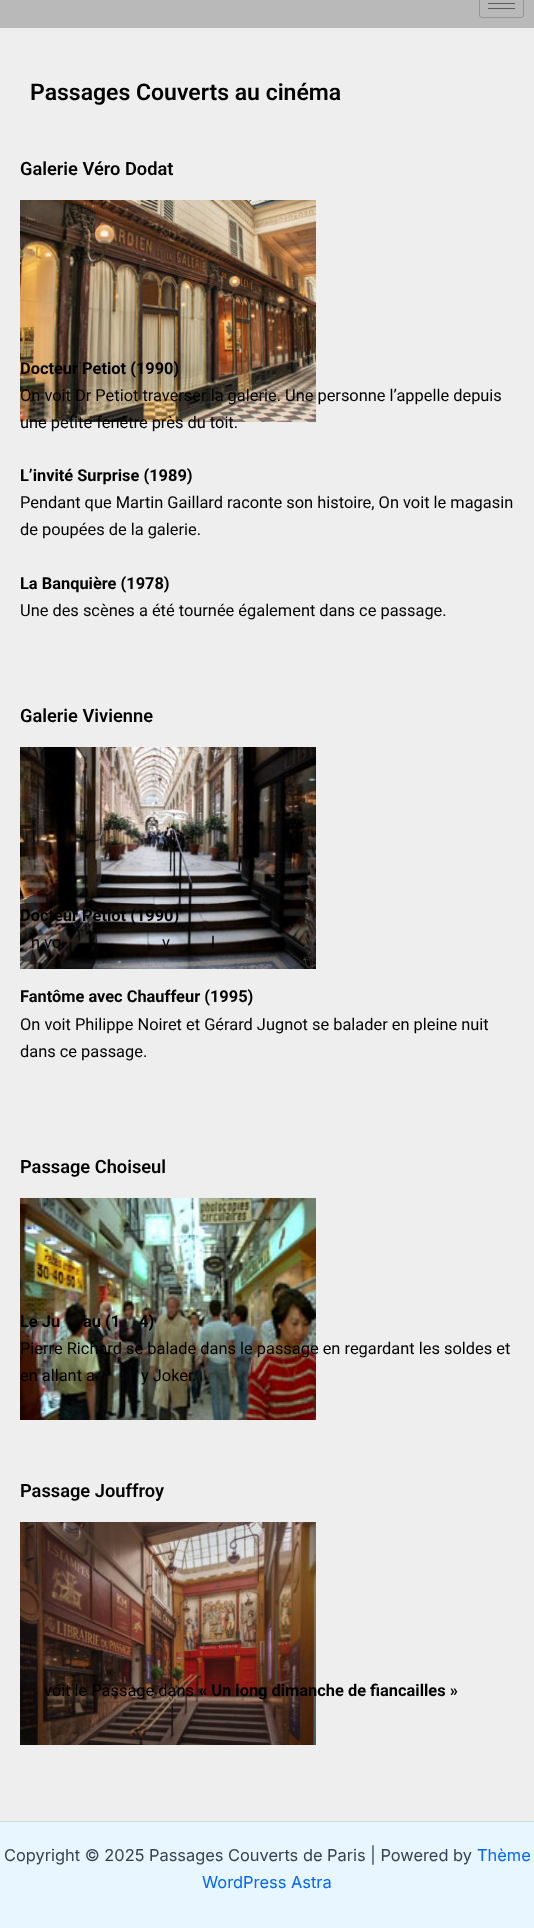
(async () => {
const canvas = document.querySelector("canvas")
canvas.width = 534
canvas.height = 1928
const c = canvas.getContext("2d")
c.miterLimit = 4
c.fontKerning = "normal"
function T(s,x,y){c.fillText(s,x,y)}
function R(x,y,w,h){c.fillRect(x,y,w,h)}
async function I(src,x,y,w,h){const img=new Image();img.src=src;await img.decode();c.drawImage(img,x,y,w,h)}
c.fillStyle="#eee"
R(0,0,534,1928)
c.fillStyle="#b9b9b9"
R(0,0,534,28)
c.beginPath()
c.roundRect(479.5,-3.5,44,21,2.5)
c.strokeStyle="#00000033"
c.stroke()
c.fillStyle="#5d5d5d"
R(488,3,27,1)
R(488,8,27,1)
c.font="600 23px Roboto"
c.fillStyle="#000"
T("Passages Couverts au cinéma",30,100)
c.font="600 18.25px Roboto"
T("Galerie Véro Dodat",20,175)
await I("1.png",20,200,296,222)
c.font="bold 16.4px Roboto"
T("Docteur Petiot (1990)",20,374)
c.font="16.4px Roboto"
T("On voit Dr Petiot traverser la galerie. Une personne l’appelle depuis",20,401)
T("une petite fenêtre près du toit.",20,428)
c.font="bold 16.4px Roboto"
T("L’invité Surprise (1989)",20,481)
c.font="16.4px Roboto"
T("Pendant que Martin Gaillard raconte son histoire, On voit le magasin",20,508)
T("de poupées de la galerie.",20,535)
c.font="bold 16.4px Roboto"
T("La Banquière (1978)",20,589)
c.font="16.4px Roboto"
T("Une des scènes a été tournée également dans ce passage.",20,616)
c.font="600 18.25px Roboto"
T("Galerie Vivienne",20,722)
await I("2.png",20,747,296,222)
c.font="bold 16.4px Roboto"
T("Docteur Petiot (1990)",20,921)
c.font="16.4px Roboto"
T("n vo",31,948)
T("v",162,948)
T("l",211,948)
c.font="bold 16.4px Roboto"
T("Fantôme avec Chauffeur (1995)",20,1002)
c.font="16.4px Roboto"
T("On voit Philippe Noiret et Gérard Jugnot se balader en pleine nuit",20,1030)
T("dans ce passage.",20,1057)
c.font="600 18.25px Roboto"
T("Passage Choiseul",20,1173)
await I("3.png",20,1198,296,222)
c.font="bold 16.4px Roboto"
T("Le Ju",20,1327)
T("au (1",83,1327)
T("4)",139,1327)
c.font="16.4px Roboto"
T("Pierre Richard se balade dans le passage en regardant les soldes et",20,1354)
T("en allant a",20,1381)
T("y Joker.",141,1381)
c.font="600 18.25px Roboto"
T("Passage Jouffroy",20,1497)
await I("4.png",20,1522,296,223)
c.font="16.4px Roboto"
T("voit le Passage dans",44,1696)
c.font="bold 16.4px Roboto"
T("« Un long dimanche de fiancailles »",199,1696)
c.fillStyle="#e7f6ff"
R(0,1822,534,106)
c.fillStyle="#d1dae5"
R(0,1821,534,1)
c.font="16.4px Inter"
c.fillStyle="#364151"
T("Copyright © 2025 Passages Couverts de Paris | Powered by",4,1861)
c.fillStyle="#0067ff"
T("Thème",477,1861)
T("WordPress Astra",202,1888)
})()
